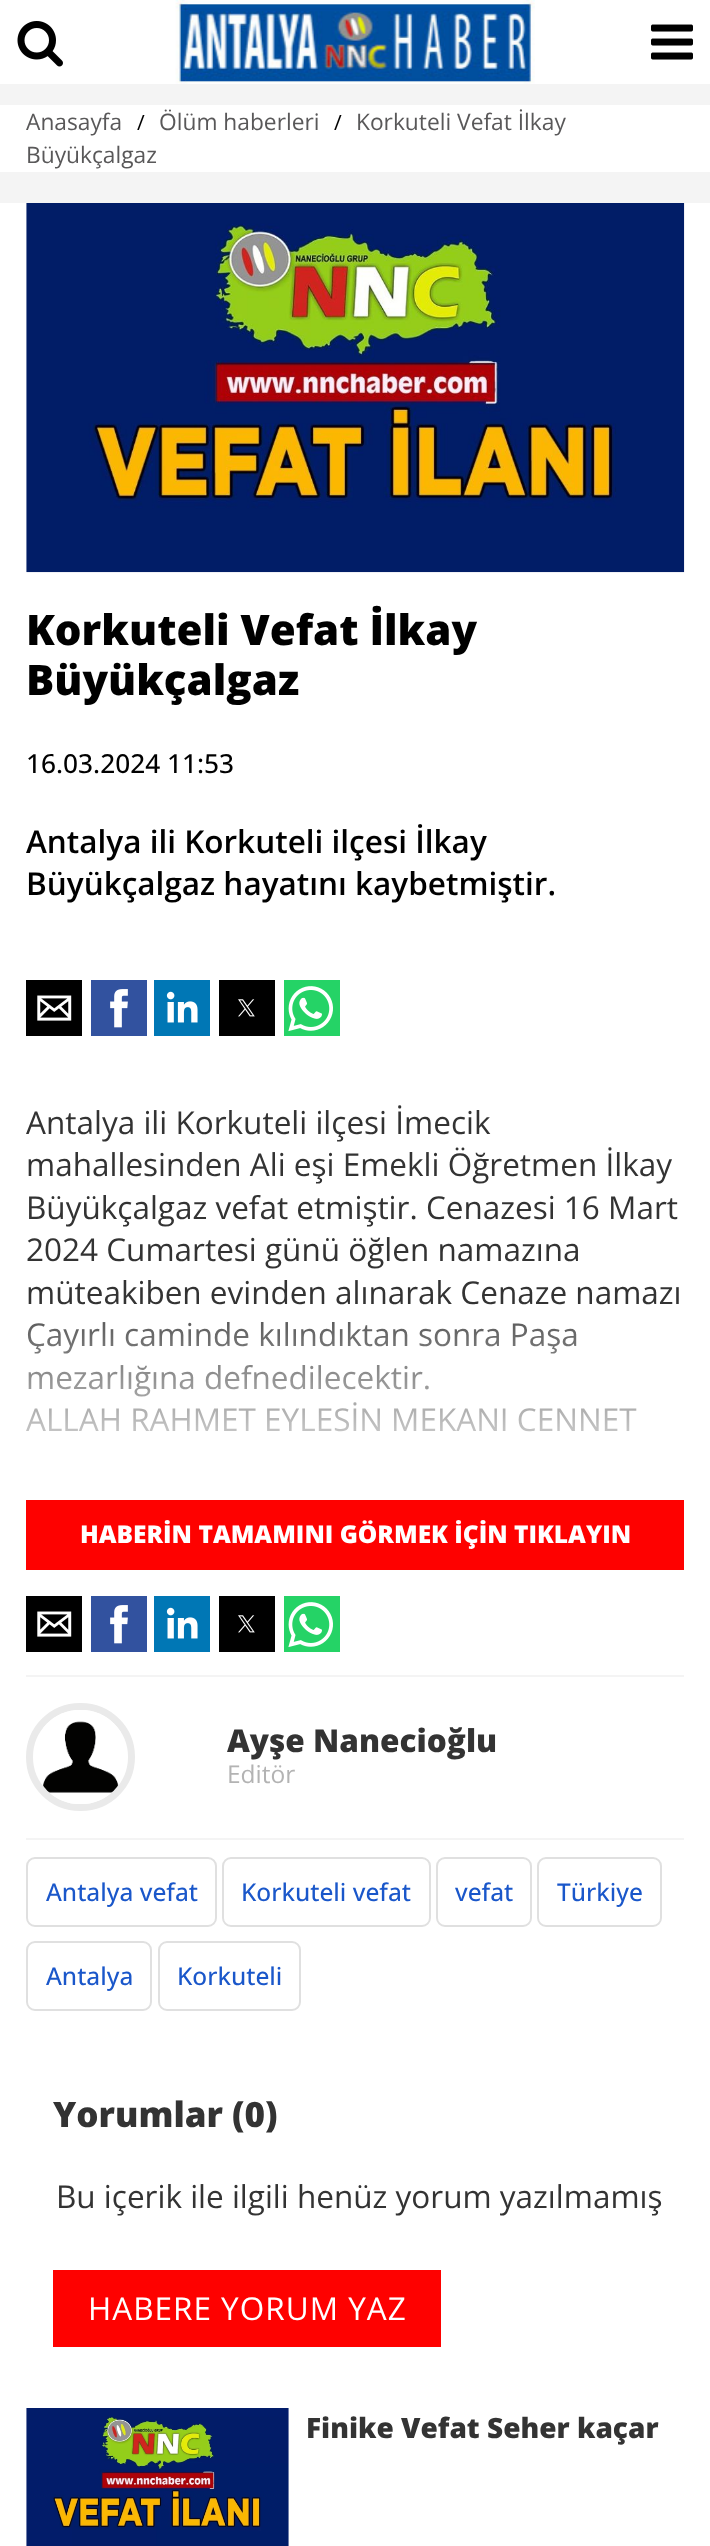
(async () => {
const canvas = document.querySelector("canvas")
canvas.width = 710
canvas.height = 2546
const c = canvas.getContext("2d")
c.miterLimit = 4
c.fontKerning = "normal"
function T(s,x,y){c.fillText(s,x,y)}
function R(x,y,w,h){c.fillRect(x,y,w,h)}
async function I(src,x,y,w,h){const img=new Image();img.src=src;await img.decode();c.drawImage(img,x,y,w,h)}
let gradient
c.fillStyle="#f4f4f4"
R(0,0,710,2546)
c.fillStyle="#fff"
R(0,0,710,84)
await I("1.png",175,0,360,84)
await I("2.png",17,21,46,46)
await I("3.png",651,24,42,36)
R(0,105,710,67)
c.font="22.75px Open Sans"
c.fillStyle="#595859"
T("Anasayfa",26,130)
c.font="21px Open Sans"
c.fillStyle="#000"
T("/",137,130)
c.font="22.75px Open Sans"
c.fillStyle="#595859"
T("Ölüm haberleri",159,130)
c.font="21px Open Sans"
c.fillStyle="#000"
T("/",334,130)
c.font="22.75px Open Sans"
c.fillStyle="#595859"
T("Korkuteli Vefat İlkay",356,130)
T("Büyükçalgaz",26,163)
c.fillStyle="#fff"
R(0,203,710,2343)
await I("4.png",26,203,659,370)
c.font="800 42px Open Sans"
c.fillStyle="#000"
T("Korkuteli Vefat İlkay",26,645)
T("Büyükçalgaz",26,695)
c.font="500 26.25px Open Sans"
T("16.03.2024 11:53",26,773)
c.font="600 31.5px Open Sans"
T("Antalya ili Korkuteli ilçesi İlkay",26,853)
T("Büyükçalgaz hayatını kaybetmiştir.",26,895)
R(26,980,56,56)
await I("5.png",37,995,35,26)
c.fillStyle="#32529f"
R(91,980,56,56)
await I("6.png",110,989,18,39)
c.fillStyle="#0077b5"
R(154,980,56,56)
await I("7.png",166,991,32,32)
c.fillStyle="#000"
R(219,980,56,56)
await I("8.png",238,999,17,18)
c.fillStyle="#25d366"
R(284,980,56,56)
await I("9.png",288,986,45,46)
c.font="31.5px Open Sans"
c.fillStyle="#333"
T("Antalya ili Korkuteli ilçesi İmecik",26,1134)
T("mahallesinden Ali eşi Emekli Öğretmen İlkay",26,1176)
T("Büyükçalgaz vefat etmiştir. Cenazesi 16 Mart",26,1219)
T("2024 Cumartesi günü öğlen namazına",26,1261)
T("müteakiben evinden alınarak Cenaze namazı",26,1304)
T("Çayırlı caminde kılındıktan sonra Paşa",26,1346)
T("mezarlığına defnedilecektir.",26,1389)
T("ALLAH RAHMET EYLESİN MEKANI CENNET",26,1431)
gradient = c.createLinearGradient(355,1277,355,1570)
gradient.addColorStop(0,"#ffffff00")
gradient.addColorStop(.74,"#fff")
c.fillStyle = gradient
R(26,1322,611,110)
c.fillStyle="#fe0100"
R(26,1500,658,70)
c.font="800 24.5px Open Sans"
c.fillStyle="#fff"
T("HABERİN TAMAMINI GÖRMEK İÇİN TIKLAYIN",80,1543)
c.fillStyle="#000"
R(26,1596,56,56)
await I("5.png",37,1611,35,26)
c.fillStyle="#32529f"
R(91,1596,56,56)
await I("6.png",110,1605,18,39)
c.fillStyle="#0077b5"
R(154,1596,56,56)
await I("7.png",166,1607,32,32)
c.fillStyle="#000"
R(219,1596,56,56)
await I("8.png",238,1615,17,18)
c.fillStyle="#25d366"
R(284,1596,56,56)
await I("9.png",288,1602,45,46)
c.fillStyle="#f4f4f4"
R(26,1675,658,2)
R(26,1838,658,2)
c.beginPath()
c.roundRect(29.5,1706.5,102,101,50.5)
c.strokeStyle="#eaeaea"
c.lineWidth=7
c.stroke()
await I("10.png",43,1710,78,94)
c.font="800 31.5px Open Sans"
c.fillStyle="#333"
T("Ayşe Nanecioğlu",227,1752)
c.font="24.5px Open Sans"
c.fillStyle="#b3b3b3"
T("Editör",227,1783)
c.beginPath()
c.roundRect(27,1858,189,68,8)
c.strokeStyle="#e0e0e0"
c.lineWidth=2
c.stroke()
c.font="500 24.5px Open Sans"
c.fillStyle="#1a57ca"
T("Antalya vefat",46,1901)
c.beginPath()
c.roundRect(223,1858,207,68,8)
c.stroke()
T("Korkuteli vefat",241,1901)
c.beginPath()
c.roundRect(437,1858,94,68,8)
c.stroke()
T("vefat",455,1901)
c.beginPath()
c.roundRect(538,1858,123,68,8)
c.stroke()
T("Türkiye",557,1901)
c.beginPath()
c.roundRect(27,1942,124,68,8)
c.stroke()
T("Antalya",46,1985)
c.beginPath()
c.roundRect(159,1942,141,68,8)
c.stroke()
T("Korkuteli",177,1985)
c.font="800 35px Open Sans"
c.fillStyle="#333"
T("Yorumlar (0)",53,2127)
c.font="31.5px Open Sans"
T("Bu içerik ile ilgili henüz yorum yazılmamış",56,2208)
c.fillStyle="#fe0100"
R(53,2270,388,77)
c.letterSpacing="1px"
c.fillStyle="#fff"
T("HABERE YORUM YAZ",88,2320)
await I("11.png",26,2408,263,138)
c.letterSpacing="0px"
c.font="800 28px Open Sans"
c.fillStyle="#333"
T("Finike Vefat Seher kaçar",306,2438)
})()
